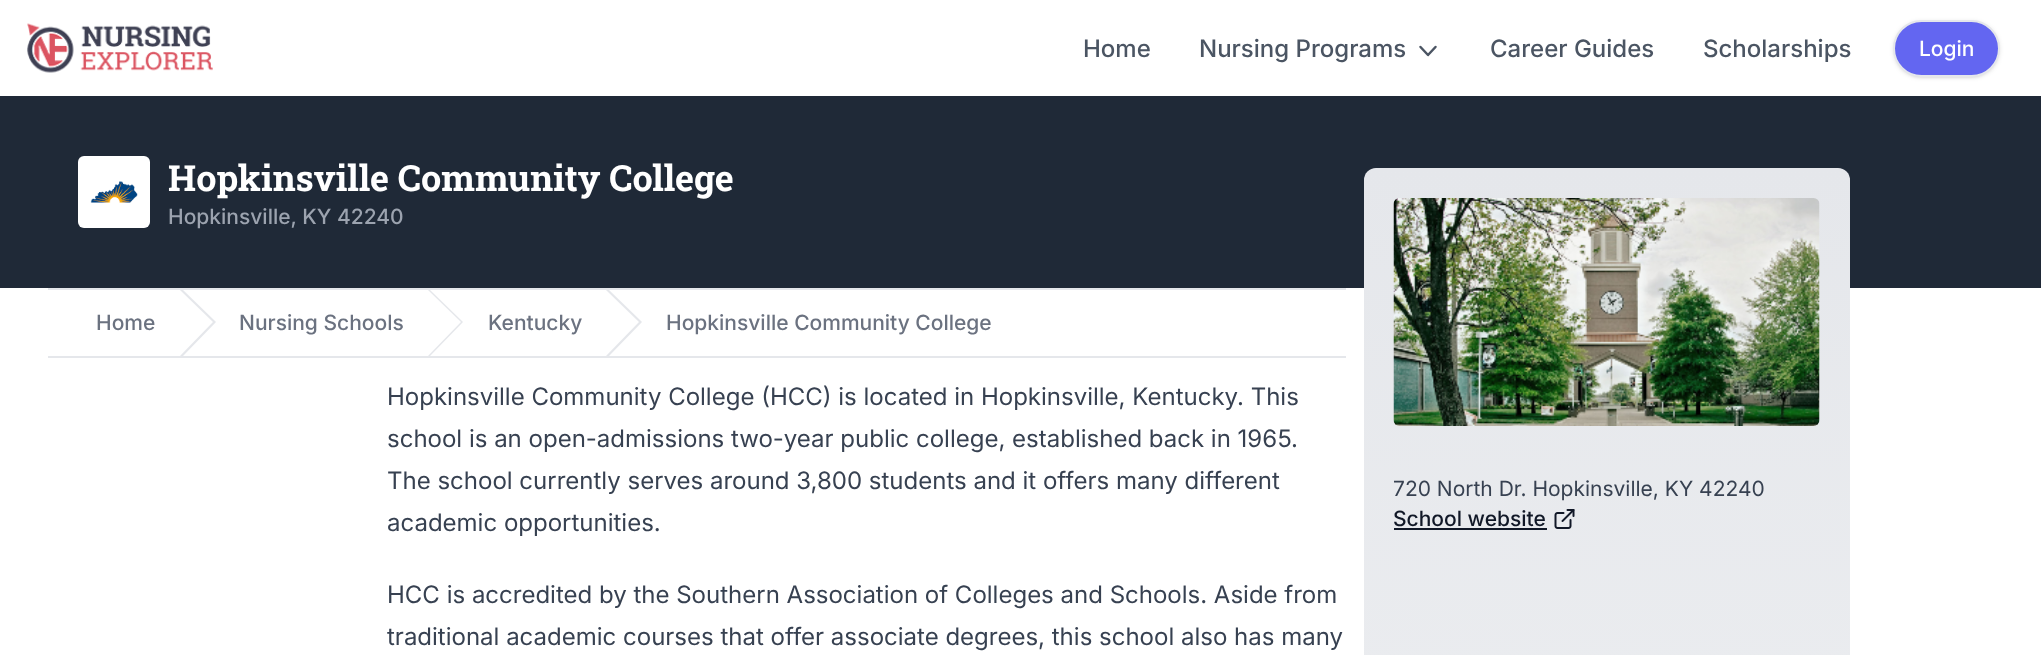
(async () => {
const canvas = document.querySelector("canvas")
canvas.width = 2041
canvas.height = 655
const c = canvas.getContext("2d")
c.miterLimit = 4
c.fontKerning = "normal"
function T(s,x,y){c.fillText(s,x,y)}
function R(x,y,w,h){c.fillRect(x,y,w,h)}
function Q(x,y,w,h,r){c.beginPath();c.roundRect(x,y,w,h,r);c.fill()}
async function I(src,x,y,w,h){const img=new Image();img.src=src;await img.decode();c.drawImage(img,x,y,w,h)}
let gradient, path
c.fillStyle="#fff"
R(0,0,2041,655)
await I("1.png",27,23,186,50)
c.font="500 24px Inter"
c.fillStyle="#4b5563"
T("Home",1083,57)
T("Nursing Programs",1199,57)
path = new Path2D("M1420.5 47l7.5 8l7.5-8")
c.strokeStyle="#4b5563"
c.lineWidth=2.5
c.lineCap="round"
c.lineJoin="round"
c.stroke(path)
T("Career Guides",1490,57)
T("Scholarships",1703,57)
c.fillStyle="#0000001a"
c.filter="blur(1.5px)"
c.beginPath()
c.roundRect(1895,23,103,54,27)
c.fill()
c.filter="none"
c.filter="blur(2px)"
c.beginPath()
c.roundRect(1893,21,107,57,28.5)
c.fill()
c.filter="none"
c.fillStyle="#6366f1"
c.beginPath()
c.roundRect(1894,21,105,55,27.5)
c.fill()
c.strokeStyle="#e5e7eb"
c.lineWidth=2
c.lineJoin="miter"
c.stroke()
c.font="500 21px Inter"
c.fillStyle="#fff"
T("Login",1919,56)
c.fillStyle="#1f2937"
R(0,96,2041,192)
c.fillStyle="#fff"
Q(78,156,72,72,6)
await I("2.png",90,181,48,22)
c.font="bold 36px Roboto Slab"
T("Hopkinsville Community College",168,191)
c.font="500 21px Inter"
c.fillStyle="#9ca3af"
T("Hopkinsville, KY 42240",168,224)
c.fillStyle="#e5e7eb"
R(48,288,1298,2)
R(48,356,1298,2)
c.fillStyle="#6b7280"
T("Home",96,330)
c.fillStyle="#e5e7eb"
path = new Path2D("M180 290l33 32l-33 34h3l33-34l-33-32z")
c.fill(path)
c.fillStyle="#6b7280"
T("Nursing Schools",239,330)
c.fillStyle="#e5e7eb"
path = new Path2D("M428 290l33 32l-33 34h2l33-34l-33-32z")
c.fill(path)
c.fillStyle="#6b7280"
T("Kentucky",488,330)
c.fillStyle="#e5e7eb"
path = new Path2D("M606 290l33 32l-33 34h3l33-34l-33-32z")
c.fill(path)
c.fillStyle="#6b7280"
T("Hopkinsville Community College",666,330)
c.font="24px Inter"
c.fillStyle="#374151"
T("Hopkinsville Community College (HCC) is located in Hopkinsville, Kentucky. This",387,405)
T("school is an open-admissions two-year public college, established back in 1965.",387,447)
T("The school currently serves around 3,800 students and it offers many different",387,489)
T("academic opportunities.",387,531)
T("HCC is accredited by the Southern Association of Colleges and Schools. Aside from",387,603)
T("traditional academic courses that offer associate degrees, this school also has many",387,645)
gradient = c.createLinearGradient(1606,168,1607,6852)
gradient.addColorStop(0,"#e5e7eb")
gradient.addColorStop(.3,"#f9fafb")
gradient.addColorStop(.5,"#f9fafb00")
c.fillStyle = gradient
Q(1364,168,486,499,12)
await I("3.png",1393,198,427,228)
c.font="21px Inter"
c.fillStyle="#374151"
T("720 North Dr. Hopkinsville, KY 42240",1393,496)
c.font="500 21px Inter"
c.fillStyle="#111827"
T("School website",1393,526)
R(1394,528,153,2)
await I("4.png",1554,509,21,20)
})()
